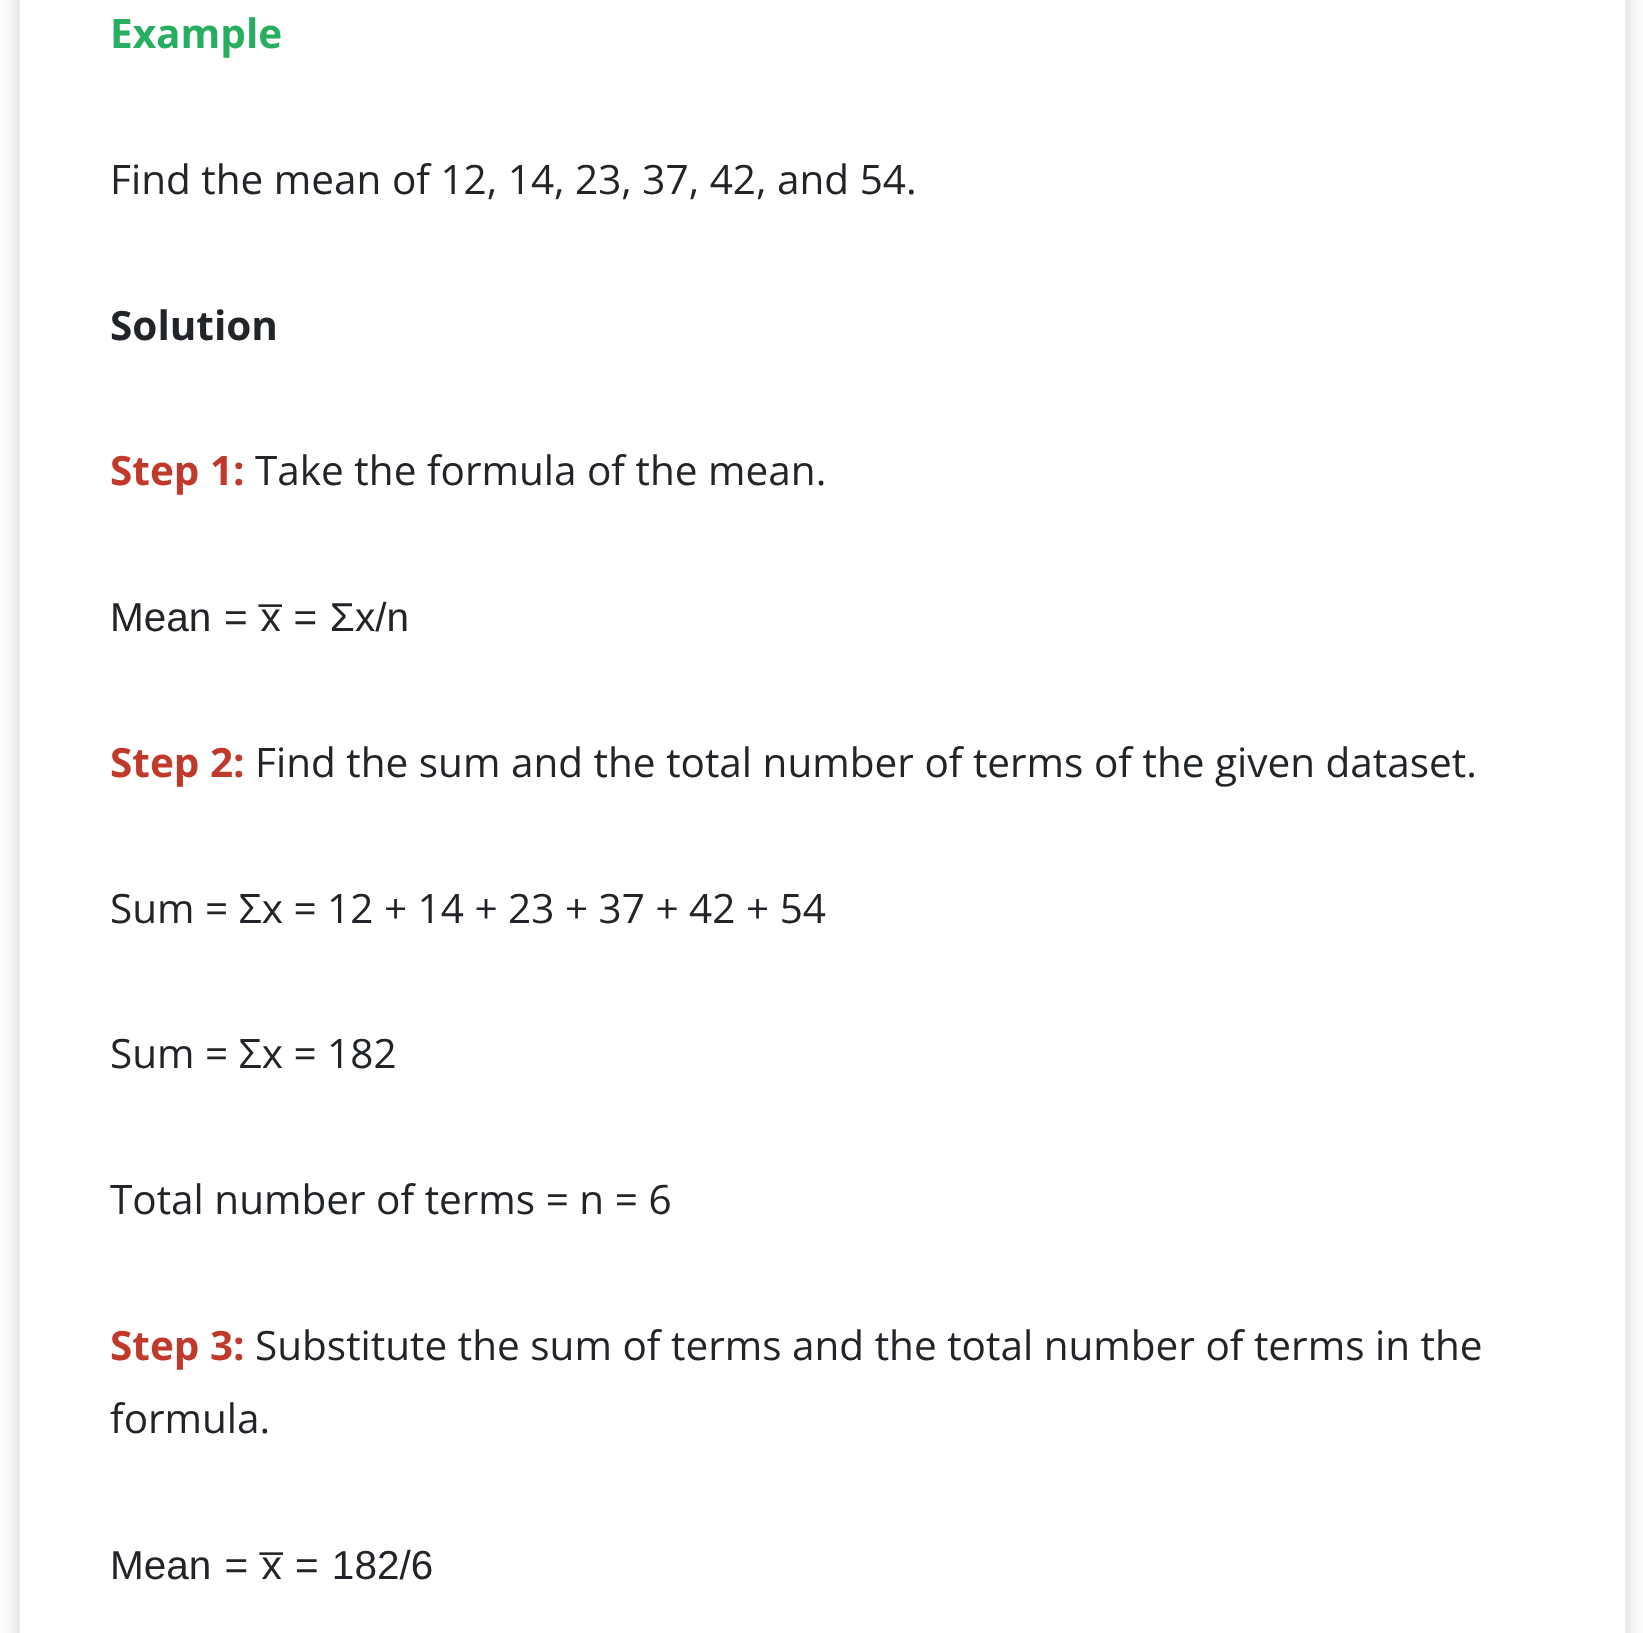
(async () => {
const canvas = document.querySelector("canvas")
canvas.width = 1643
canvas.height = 1633
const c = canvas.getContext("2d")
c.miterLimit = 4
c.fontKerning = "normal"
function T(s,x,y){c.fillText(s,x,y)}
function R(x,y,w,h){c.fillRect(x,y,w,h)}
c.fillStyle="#fbfbfb"
R(0,0,1643,1633)
c.fillStyle="#00000029"
c.filter="blur(7px)"
c.beginPath()
c.roundRect(18,-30,1609,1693,9)
c.fill()
c.filter="none"
c.fillStyle="#fff"
c.beginPath()
c.rect(19,-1,1607,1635)
c.fill()
c.strokeStyle="#eaeaea"
c.lineWidth=2
c.stroke()
c.font="bold 40.5px Open Sans"
c.fillStyle="#27ae60"
T("Example",110,48)
c.font="40.5px Open Sans"
c.fillStyle="#212529"
T("Find the mean of 12, 14, 23, 37, 42, and 54.",110,194)
c.font="bold 40.5px Open Sans"
T("Solution",110,340)
c.fillStyle="#c0392b"
T("Step 1:",110,485)
c.font="40.5px Open Sans"
c.fillStyle="#212529"
T("Take the formula of the mean.",255,485)
c.wordSpacing="1.5px"
c.font="40.5px Liberation Sans"
T("Mean = x̅ = Σx/n",110,631)
c.wordSpacing="0px"
c.font="bold 40.5px Open Sans"
c.fillStyle="#c0392b"
T("Step 2:",110,777)
c.font="40.5px Open Sans"
c.fillStyle="#212529"
T("Find the sum and the total number of terms of the given dataset.",255,777)
T("Sum = Σx = 12 + 14 + 23 + 37 + 42 + 54",110,923)
T("Sum = Σx = 182",110,1068)
T("Total number of terms = n = 6",110,1214)
c.font="bold 40.5px Open Sans"
c.fillStyle="#c0392b"
T("Step 3:",110,1360)
c.font="40.5px Open Sans"
c.fillStyle="#212529"
T("Substitute the sum of terms and the total number of terms in the",255,1360)
T("formula.",110,1433)
c.wordSpacing="2px"
c.font="40.5px Liberation Sans"
T("Mean = x̅ = 182/6",110,1579)
})()
